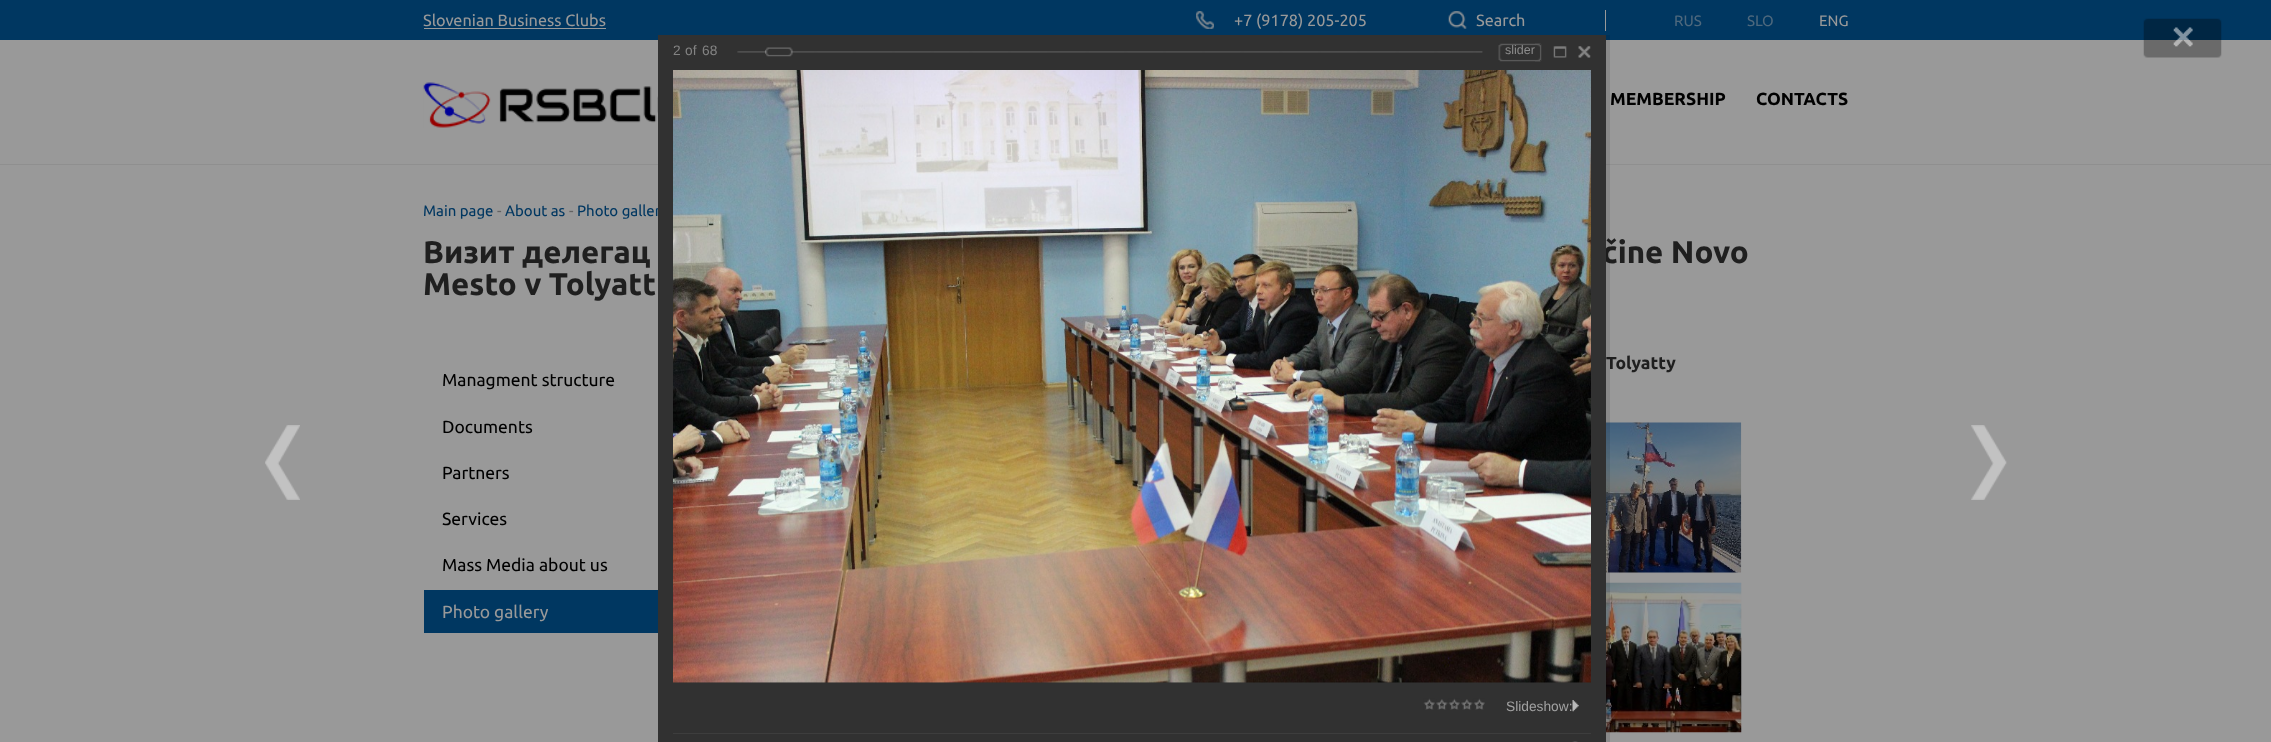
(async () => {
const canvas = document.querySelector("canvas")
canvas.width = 2271
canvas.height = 742
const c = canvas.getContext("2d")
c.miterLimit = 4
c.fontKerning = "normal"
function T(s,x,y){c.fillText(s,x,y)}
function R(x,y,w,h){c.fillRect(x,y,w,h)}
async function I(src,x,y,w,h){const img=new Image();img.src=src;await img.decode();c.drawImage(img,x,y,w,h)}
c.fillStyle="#999"
R(0,0,2271,742)
c.fillStyle="#003761"
R(0,0,2271,40)
c.font="16.25px Ubuntu"
c.fillStyle="#999"
T("Slovenian Business Clubs",423,26)
R(424,28,182,1)
await I("1.png",1196,11,18,18)
T("+7 (9178) 205-205",1234,26)
await I("2.png",1448,11,19,18)
T("Search",1476,26)
R(1605,10,1,21)
c.font="15px Ubuntu"
c.fillStyle="#4d687d"
T("RUS",1674,26)
T("SLO",1747,26)
c.fillStyle="#999"
T("ENG",1819,26)
c.fillStyle="#8f8f8f"
R(0,164,2271,1)
await I("3.png",423,82,235,46)
c.font="bold 17.5px Ubuntu"
c.fillStyle="#000"
T("MEMBERSHIP",1610,105)
T("CONTACTS",1756,105)
c.font="15px Ubuntu"
c.fillStyle="#003761"
T("Main page",423,216)
c.fillStyle="#626262"
T("-",497,216)
c.fillStyle="#003761"
T("About as",505,216)
c.fillStyle="#626262"
T("-",569,216)
c.fillStyle="#003761"
T("Photo galler",577,216)
c.font="bold 31.25px Ubuntu"
c.fillStyle="#1f1f1f"
T("Визит делегац",423,263)
T("čine Novo",1602,263)
T("Mesto v Tolyatt",423,295)
c.font="bold 17.5px Ubuntu"
T("Tolyatty",1606,369)
await I("4.png",1606,422,136,151)
await I("5.png",1606,582,136,151)
c.font="17.5px Ubuntu"
c.fillStyle="#000"
T("Managment structure",442,386)
T("Documents",442,433)
T("Partners",442,479)
T("Services",442,525)
T("Mass Media about us",442,571)
c.fillStyle="#003761"
R(424,590,234,43)
c.fillStyle="#999"
T("Photo gallery",442,618)
await I("6.png",265,425,35,75)
c.fillStyle="#0000001a"
R(1606,35,4,707)
c.fillStyle="#313131"
R(658,35,948,707)
c.font="13.75px Liberation Sans"
c.fillStyle="#838383"
T("2",673,55)
T("of",685,55)
T("68",702,55)
await I("7.png",737,51,746,2)
await I("8.png",765,47,28,10)
await I("9.png",1498,43,44,19)
c.font="12.5px Liberation Sans"
c.fillStyle="#8c8c8c"
T("slider",1505,54)
await I("10.png",1535,43,7,19)
await I("11.png",1553,46,14,12)
await I("12.png",1578,46,13,12)
await I("13.png",673,70,918,613)
c.fillStyle="#3d3d3d"
R(673,733,918,1)
await I("14.png",1423,698,12,12)
await I("15.png",1436,699,12,11)
await I("14.png",1448,698,12,12)
await I("15.png",1461,699,12,11)
await I("16.png",1473,698,12,12)
c.font="13.75px Liberation Sans"
c.fillStyle="#a2a2a2"
T("Slideshow:",1506,711)
await I("17.png",1572,700,7,12)
await I("18.png",1572,741,6,1)
await I("19.png",2143,18,79,40)
await I("20.png",1971,425,36,75)
})()
